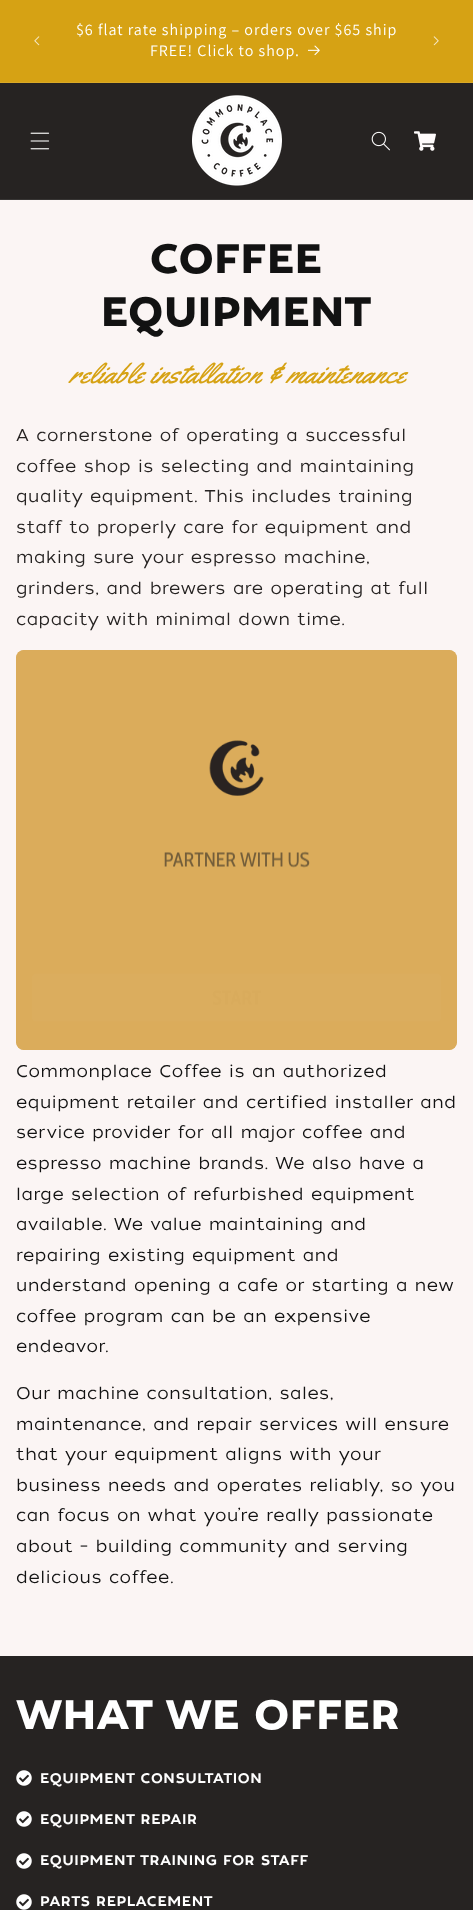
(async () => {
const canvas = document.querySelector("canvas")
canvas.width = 473
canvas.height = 1910
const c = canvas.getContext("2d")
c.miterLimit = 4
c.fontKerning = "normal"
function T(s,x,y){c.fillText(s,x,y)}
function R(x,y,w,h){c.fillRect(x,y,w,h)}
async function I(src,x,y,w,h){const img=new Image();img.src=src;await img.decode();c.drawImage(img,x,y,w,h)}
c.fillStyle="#fbf5f4"
R(0,0,473,1910)
c.fillStyle="#d6a214"
R(0,0,473,82)
c.fillStyle="#d9a927"
R(0,82,473,1)
await I("1.png",34,36,6,10)
c.letterSpacing="1px"
c.font="200 16px Assistant"
c.fillStyle="#fff"
T("$6 flat rate shipping – orders over $65 ship",76,35)
T("FREE! Click to shop.",150,56)
await I("2.png",308,45,12,11)
await I("3.png",433,36,6,10)
c.fillStyle="#262322"
R(0,83,473,116)
c.fillStyle="#373534"
R(0,199,473,1)
await I("4.png",30,132,20,18)
await I("5.png",192,95,90,91)
await I("6.png",371,131,19,20)
await I("7.png",414,131,22,20)
c.letterSpacing="0.6px"
c.font="600 41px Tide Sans"
c.fillStyle="#121212"
T("COFFEE",150,273)
T("EQUIPMENT",101,326)
c.font="italic 28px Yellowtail"
c.fillStyle="#d6a214"
T("reliable installation & maintenance",69,383)
c.font="300 17px Tide Sans"
c.fillStyle="#262322"
T("A cornerstone of operating a successful",16,441)
T("coffee shop is selecting and maintaining",16,472)
T("quality equipment. This includes training",16,502)
T("staff to properly care for equipment and",16,533)
T("making sure your espresso machine,",16,563)
T("grinders, and brewers are operating at full",16,594)
T("capacity with minimal down time.",16,625)
await I("8.png",16,650,441,400)
c.fillStyle="#121212"
T("Commonplace Coffee is an authorized",16,1077)
T("equipment retailer and certified installer and",16,1108)
T("service provider for all major coffee and",16,1138)
T("espresso machine brands. We also have a",16,1169)
T("large selection of refurbished equipment",16,1200)
T("available. We value maintaining and",16,1230)
T("repairing existing equipment and",16,1261)
T("understand opening a cafe or starting a new",16,1291)
T("coffee program can be an expensive",16,1322)
T("endeavor.",16,1352)
T("Our machine consultation, sales,",16,1399)
T("maintenance, and repair services will ensure",16,1430)
T("that your equipment aligns with your",16,1460)
T("business needs and operates reliably, so you",16,1491)
T("can focus on what you’re really passionate",16,1521)
T("about – building community and serving",16,1552)
T("delicious coffee.",16,1583)
c.fillStyle="#262322"
R(0,1656,473,254)
c.font="600 41px Tide Sans"
c.fillStyle="#fff"
T("WHAT WE OFFER",16,1729)
await I("9.png",16,1770,16,16)
c.font="500 14px Tide Sans"
T("EQUIPMENT CONSULTATION",40,1783)
await I("9.png",16,1811,16,16)
T("EQUIPMENT REPAIR",40,1824)
await I("9.png",16,1853,16,16)
T("EQUIPMENT TRAINING FOR STAFF",40,1865)
await I("9.png",16,1894,16,16)
T("PARTS REPLACEMENT",40,1906)
})()
